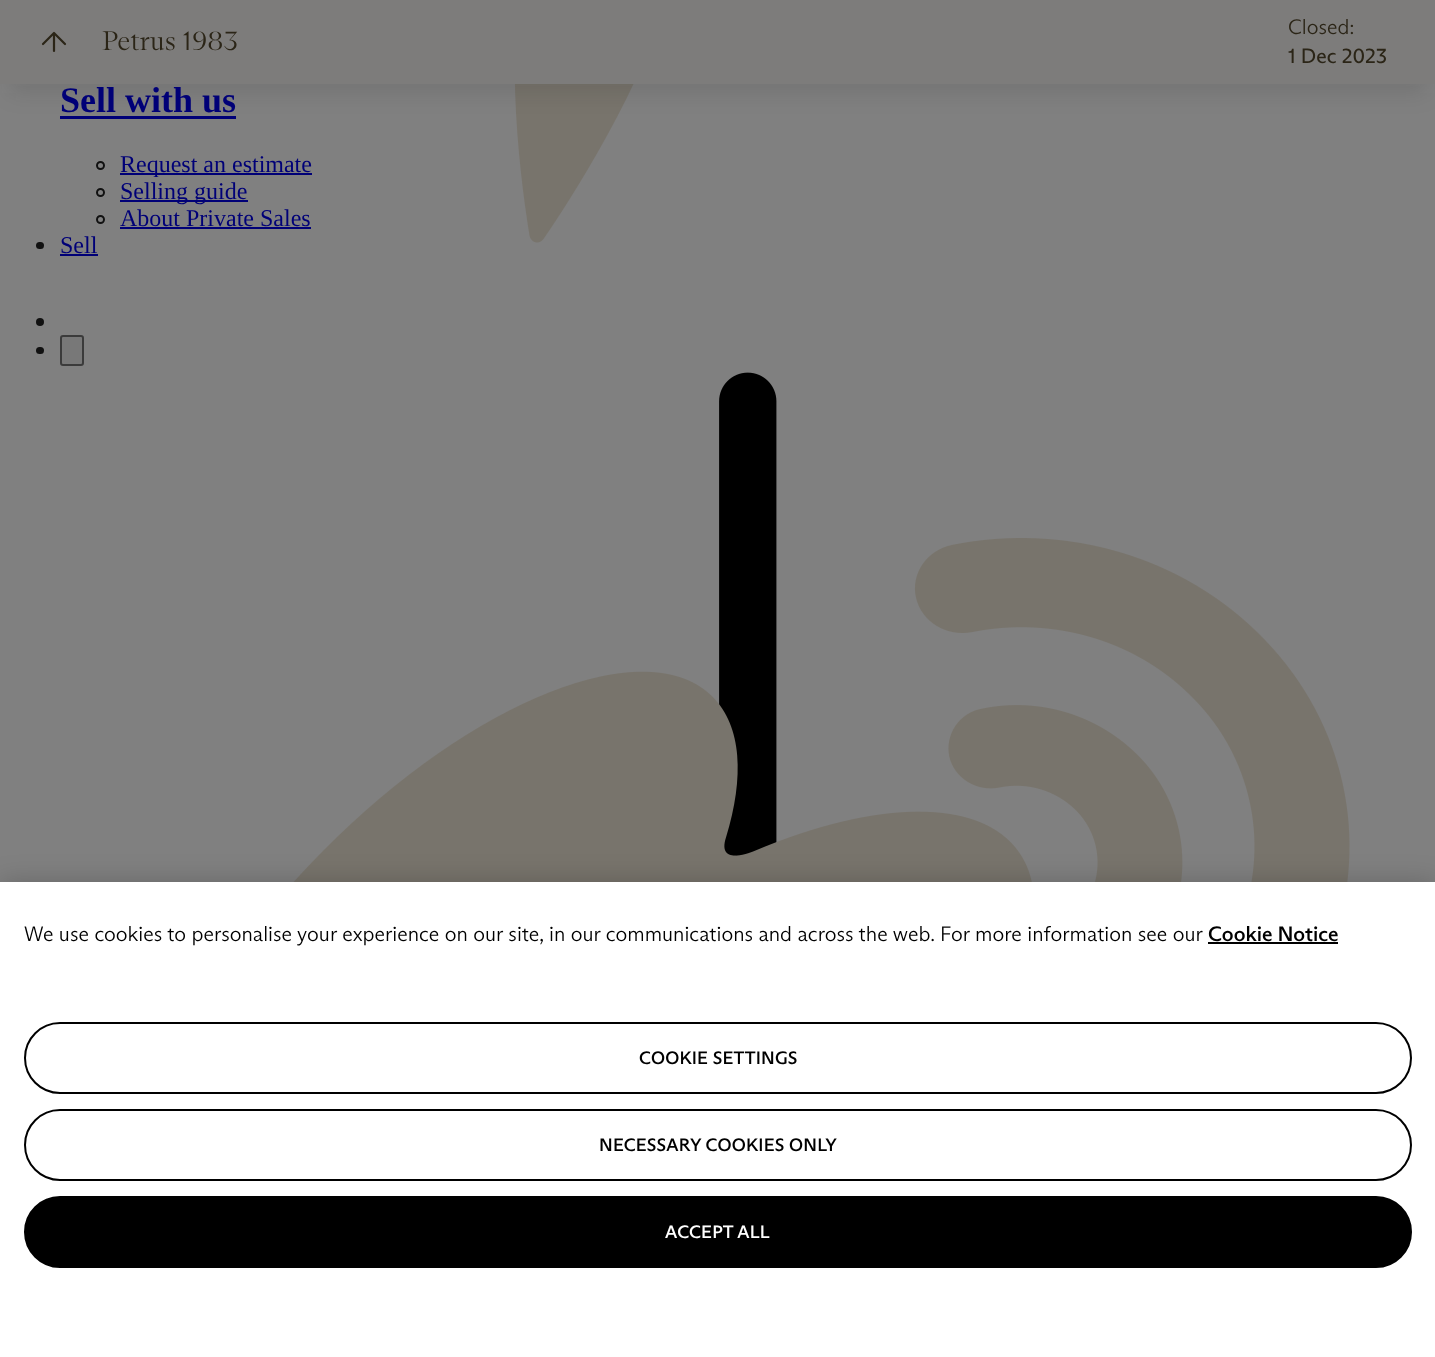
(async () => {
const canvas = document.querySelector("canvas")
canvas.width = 1435
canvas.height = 1357
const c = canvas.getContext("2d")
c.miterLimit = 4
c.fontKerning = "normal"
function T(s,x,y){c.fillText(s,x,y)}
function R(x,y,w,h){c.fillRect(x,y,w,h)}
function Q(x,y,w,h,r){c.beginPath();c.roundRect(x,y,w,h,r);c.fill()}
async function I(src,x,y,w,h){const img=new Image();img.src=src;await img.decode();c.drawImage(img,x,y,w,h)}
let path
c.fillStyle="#808080"
R(0,0,1435,1357)
await I("1.png",514,84,120,159)
c.fillStyle="#007"
R(60,116,176,3)
c.fillStyle="#1111111c"
c.filter="blur(11px)"
c.beginPath()
c.rect(9,27,1418,66)
c.fill()
c.filter="none"
c.fillStyle="#7d7c7b"
R(0,0,1435,84)
path = new Path2D("M65 44l-11-11l-11 11")
c.strokeStyle="#2b2517"
c.lineWidth=2.2
c.lineCap="round"
c.lineJoin="round"
c.stroke(path)
path = new Path2D("M54 35v16")
c.lineJoin="miter"
c.stroke(path)
c.font="300 27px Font"
c.fillStyle="#2b2517"
T("Petrus 1983",102,50)
c.font="300 21px 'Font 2'"
T("Closed:",1288,34)
c.font="21px Font"
T("1 Dec 2023",1288,63)
c.fillStyle="#111"
c.beginPath()
c.arc(40,322,4,0,7)
c.fill()
Q(36,347,8,7,3.5)
c.fillStyle="#787878"
c.beginPath()
c.roundRect(61,336,22,29,2)
c.fill()
c.strokeStyle="#3b3b3b"
c.lineWidth=2
c.stroke()
await I("3.png",719,372,58,484)
await I("2.png",293,538,1057,344)
c.font="bold 36px Liberation Serif"
c.fillStyle="#007"
T("Sell with us",60,112)
c.beginPath()
c.arc(100.5,165.5,3.5,0,7)
c.strokeStyle="#111"
c.stroke()
R(120,173,192,2)
c.font="24px Liberation Serif"
T("Request an estimate",120,172)
c.beginPath()
c.arc(100.5,192.5,3.5,0,7)
c.stroke()
R(120,200,128,2)
T("Selling guide",120,199)
c.beginPath()
c.arc(100.5,219.5,3.5,0,7)
c.stroke()
T("About Private Sales",120,226)
R(120,227,191,2)
c.fillStyle="#111"
Q(36,242,8,7,3.5)
c.fillStyle="#007"
T("Sell",60,253)
R(60,254,38,2)
c.fillStyle="#00000033"
c.filter="blur(13.5px)"
c.beginPath()
c.rect(0,882,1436,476)
c.fill()
c.filter="none"
c.fillStyle="#fff"
R(0,882,1435,475)
c.font="300 21px 'Font 2'"
c.fillStyle="#000"
T("We use cookies to personalise your experience on our site, in our communications and across the web. For more information see our",24,941)
c.font="500 21px Font"
T("Cookie Notice",1208,941)
R(1208,942,130,2)
c.beginPath()
c.roundRect(25,1023,1386,70,35)
c.strokeStyle="#000"
c.stroke()
c.letterSpacing="0.2px"
c.font="500 18px Font"
T("COOKIE SETTINGS",639,1064)
c.beginPath()
c.roundRect(25,1110,1386,70,35)
c.stroke()
T("NECESSARY COOKIES ONLY",599,1151)
c.beginPath()
c.roundRect(25,1197,1386,70,35)
c.fill()
c.stroke()
c.fillStyle="#fff"
T("ACCEPT ALL",665,1238)
})()
